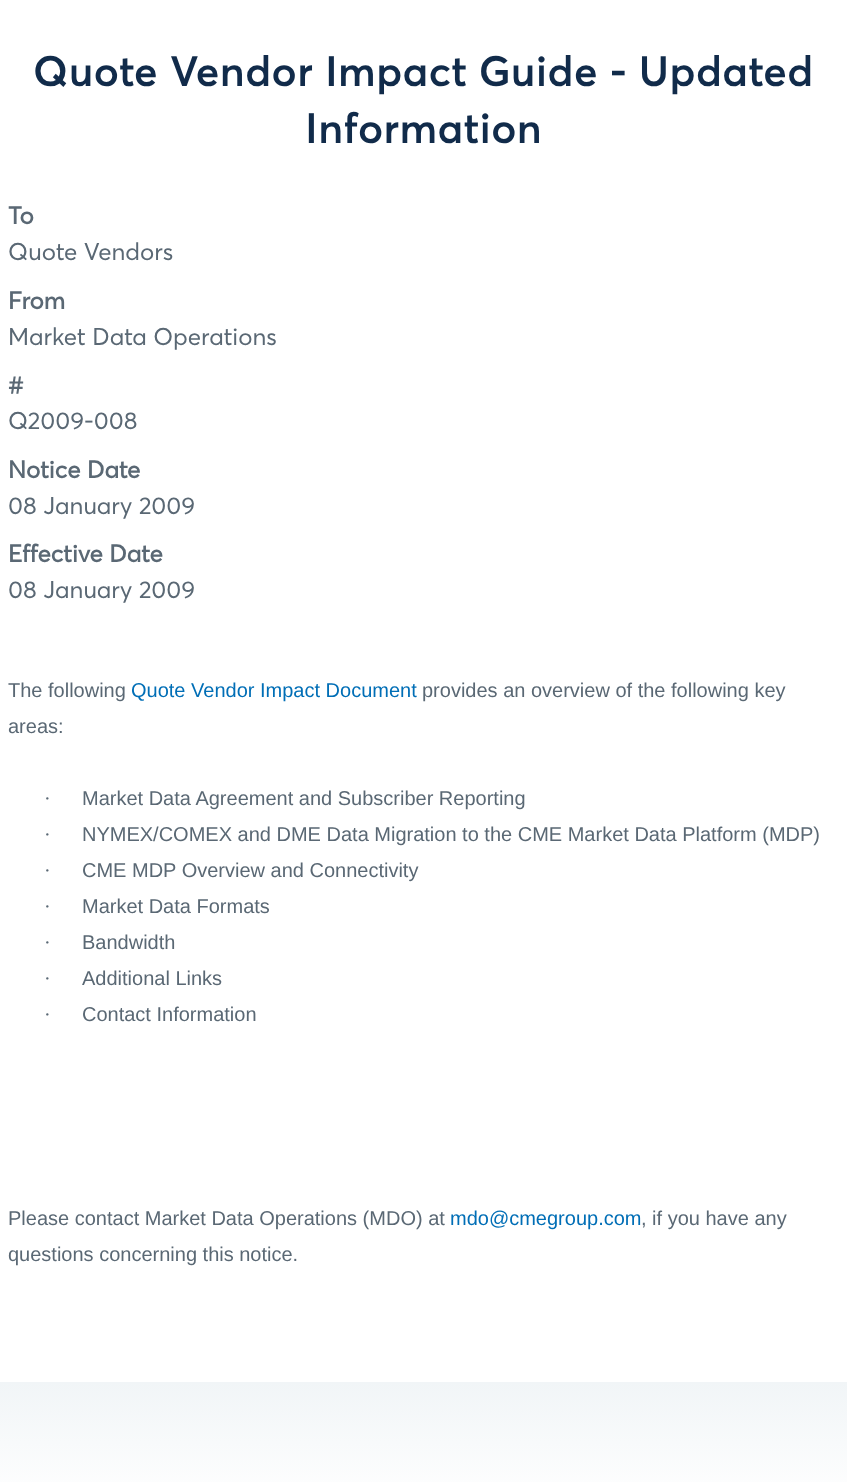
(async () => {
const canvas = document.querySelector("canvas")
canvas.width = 847
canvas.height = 1482
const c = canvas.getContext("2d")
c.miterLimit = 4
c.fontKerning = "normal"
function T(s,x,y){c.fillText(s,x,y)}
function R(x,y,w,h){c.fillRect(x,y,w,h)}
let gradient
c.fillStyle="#fff"
R(0,0,847,1482)
c.letterSpacing="0.4px"
c.font="42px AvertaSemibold"
c.fillStyle="#112b4a"
T("Quote Vendor Impact Guide - Updated",33,86)
T("Information",305,143)
c.letterSpacing="0px"
c.font="bold 24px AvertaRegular"
c.fillStyle="#5a6874"
T("To",8,224)
c.font="24px AvertaRegular"
T("Quote Vendors",8,260)
c.font="bold 24px AvertaRegular"
T("From",8,309)
c.font="24px AvertaRegular"
T("Market Data Operations",8,345)
c.font="bold 24px AvertaRegular"
T("#",8,393)
c.font="24px AvertaRegular"
T("Q2009-008",8,429)
c.font="bold 24px AvertaRegular"
T("Notice Date",8,478)
c.font="24px AvertaRegular"
T("08 January 2009",8,514)
c.font="bold 24px AvertaRegular"
T("Effective Date",8,562)
c.font="24px AvertaRegular"
T("08 January 2009",8,598)
c.font="20px Liberation Sans"
T("The following",8,697)
c.fillStyle="#006eb6"
T("Quote Vendor Impact Document",131,697)
c.fillStyle="#5a6874"
T("provides an overview of the following key",422,697)
T("areas:",8,733)
c.font="20px Liberation Serif"
T("·",44,805)
c.font="20px Liberation Sans"
T("Market Data Agreement and Subscriber Reporting",82,805)
c.font="20px Liberation Serif"
T("·",44,841)
c.font="20px Liberation Sans"
T("NYMEX/COMEX and DME Data Migration to the CME Market Data Platform (MDP)",82,841)
c.font="20px Liberation Serif"
T("·",44,877)
c.font="20px Liberation Sans"
T("CME MDP Overview and Connectivity",82,877)
c.font="20px Liberation Serif"
T("·",44,913)
c.font="20px Liberation Sans"
T("Market Data Formats",82,913)
c.font="20px Liberation Serif"
T("·",44,949)
c.font="20px Liberation Sans"
T("Bandwidth",82,949)
c.font="20px Liberation Serif"
T("·",44,985)
c.font="20px Liberation Sans"
T("Additional Links",82,985)
c.font="20px Liberation Serif"
T("·",44,1021)
c.font="20px Liberation Sans"
T("Contact Information",82,1021)
T("Please contact Market Data Operations (MDO) at",8,1225)
c.fillStyle="#006eb6"
T("mdo@cmegroup.com",450,1225)
c.fillStyle="#5a6874"
T(", if you have any",641,1225)
T("questions concerning this notice.",8,1261)
gradient = c.createLinearGradient(424,1382,424,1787)
gradient.addColorStop(0,"#f1f5f7")
gradient.addColorStop(.3,"#fff")
gradient.addColorStop(1,"#fff")
c.fillStyle = gradient
R(0,1382,847,100)
})()
